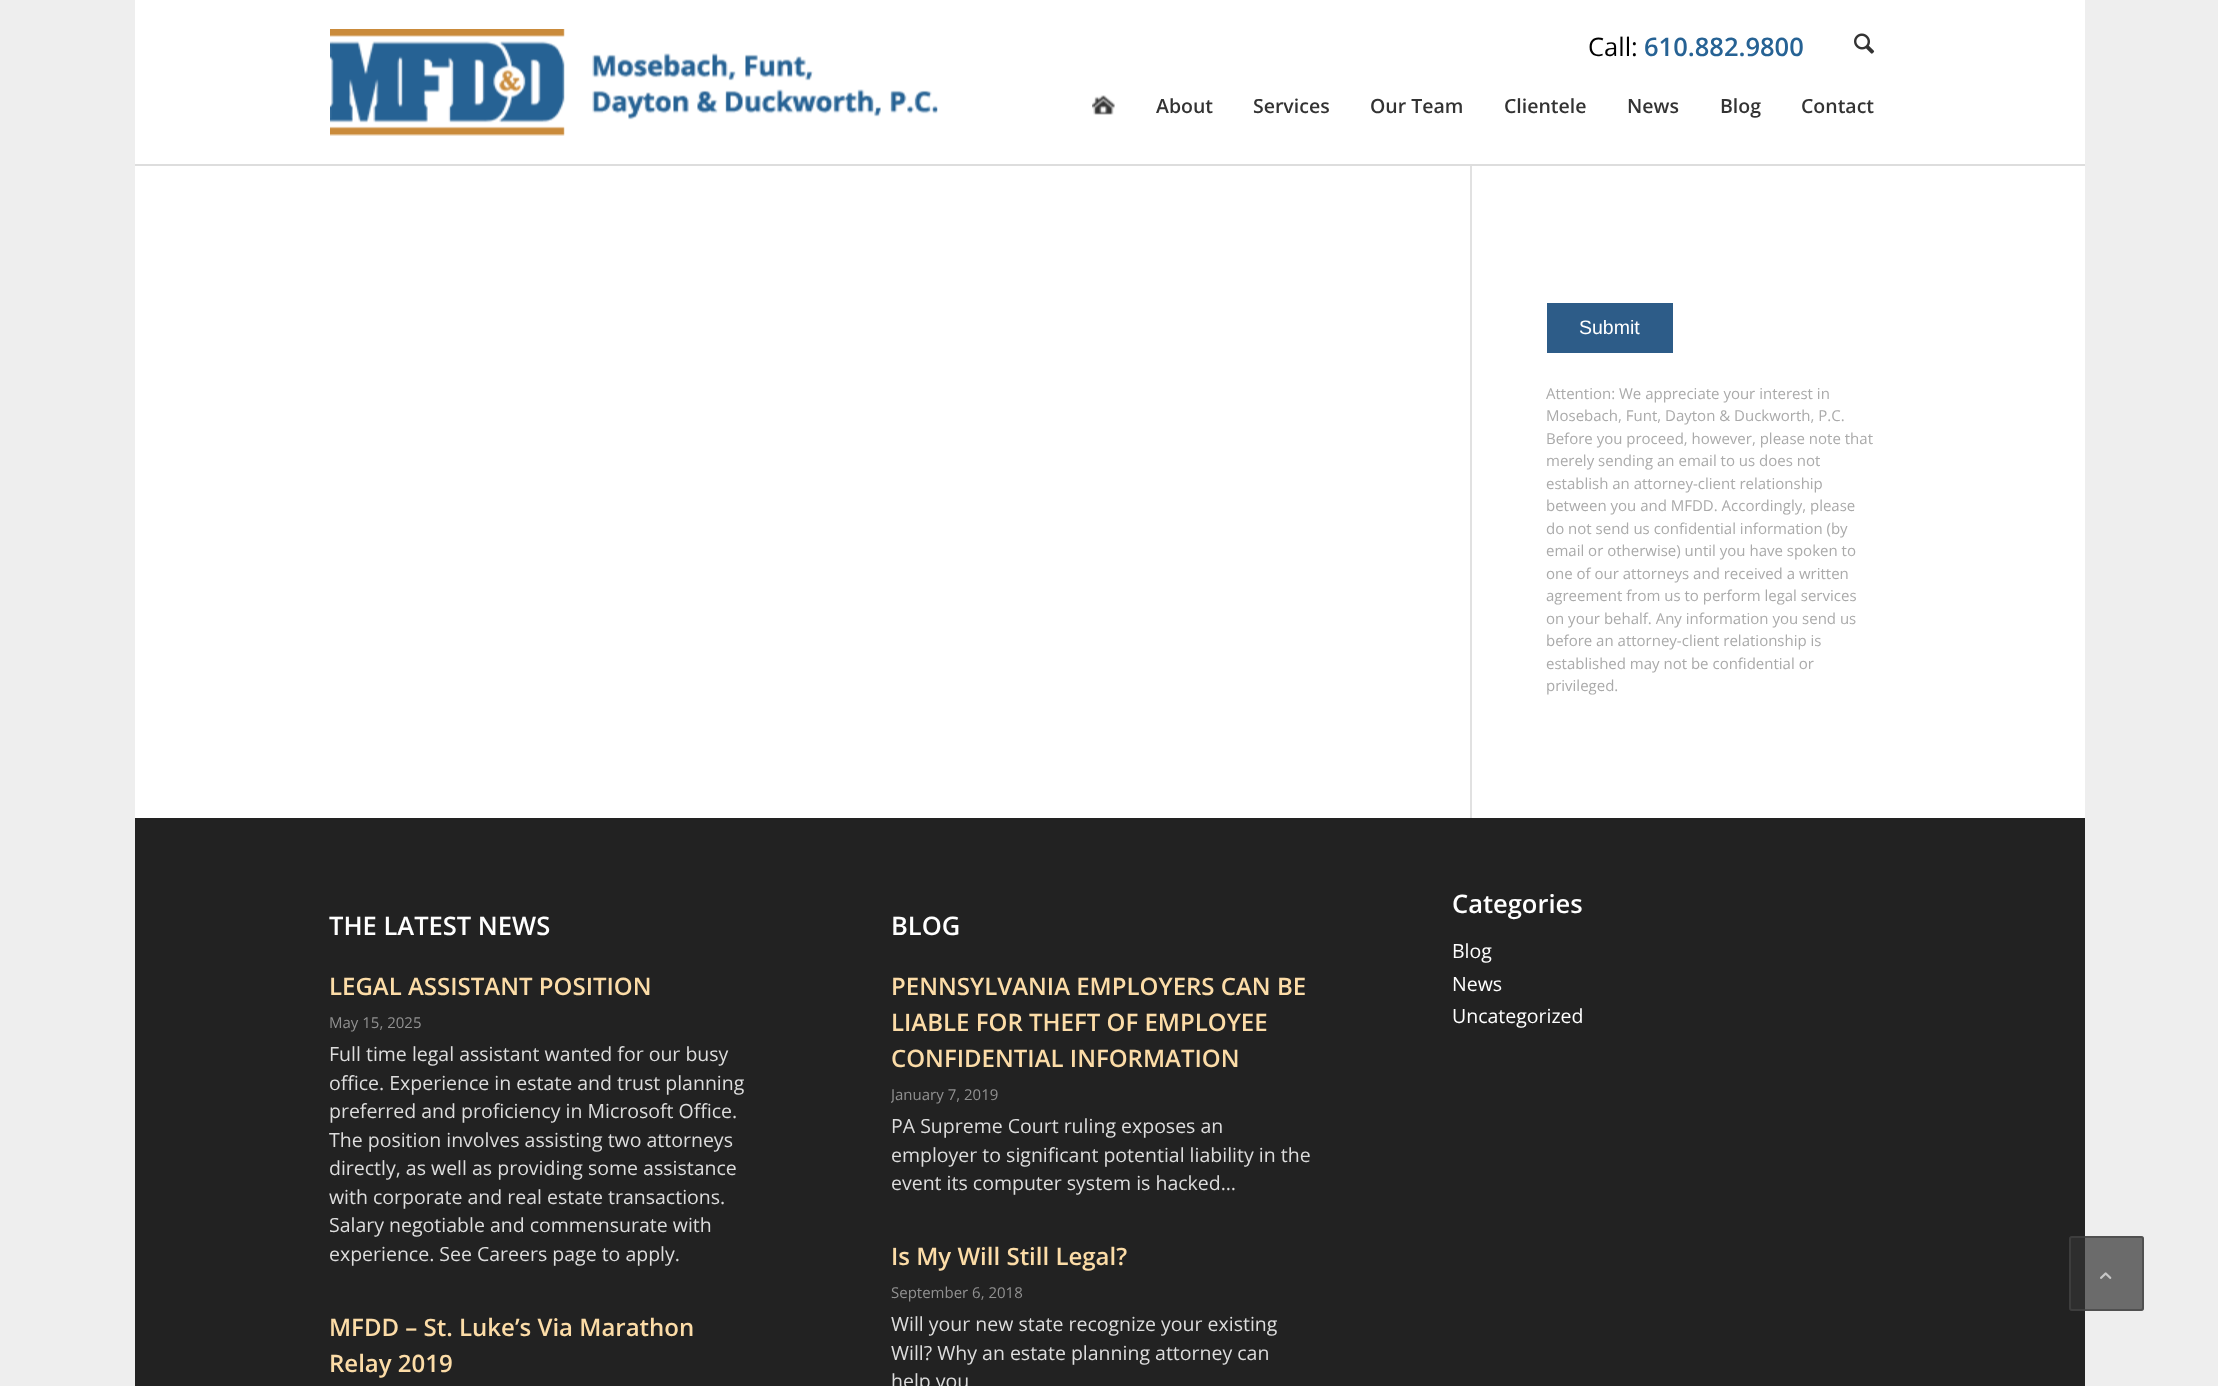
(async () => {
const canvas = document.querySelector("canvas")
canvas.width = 2218
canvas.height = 1386
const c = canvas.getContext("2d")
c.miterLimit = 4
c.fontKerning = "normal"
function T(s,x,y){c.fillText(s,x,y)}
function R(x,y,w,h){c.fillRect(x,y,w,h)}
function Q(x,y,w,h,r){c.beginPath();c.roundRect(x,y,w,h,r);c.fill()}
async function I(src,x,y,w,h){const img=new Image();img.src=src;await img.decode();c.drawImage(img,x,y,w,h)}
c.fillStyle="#eee"
R(0,0,2218,1386)
c.fillStyle="#fff"
R(135,0,1950,164)
c.fillStyle="#ddd"
R(135,164,1950,2)
await I("1.png",330,29,608,107)
c.font="25.5px Open Sans"
c.fillStyle="#000"
T("Call:",1588,56)
c.font="600 25.5px Open Sans"
c.fillStyle="#266294"
T("610.882.9800",1644,56)
await I("2.png",1854,33,21,21)
await I("3.png",1092,95,23,20)
c.font="600 19.5px Open Sans"
c.fillStyle="#333"
T("About",1156,113)
T("Services",1253,113)
T("Our Team",1370,113)
T("Clientele",1504,113)
T("News",1627,113)
T("Blog",1720,113)
T("Contact",1801,113)
c.fillStyle="#fff"
R(135,166,1950,652)
c.fillStyle="#e1e1e1"
R(1470,166,2,652)
c.fillStyle="#2d5c88"
R(1547,303,126,50)
c.font="19.5px Liberation Sans"
c.fillStyle="#fff"
T("Submit",1579,334)
c.font="15px Open Sans"
c.fillStyle="#aaa"
T("Attention: We appreciate your interest in",1546,399)
T("Mosebach, Funt, Dayton & Duckworth, P.C.",1546,421)
T("Before you proceed, however, please note that",1546,444)
T("merely sending an email to us does not",1546,466)
T("establish an attorney-client relationship",1546,489)
T("between you and MFDD. Accordingly, please",1546,511)
T("do not send us confidential information (by",1546,534)
T("email or otherwise) until you have spoken to",1546,556)
T("one of our attorneys and received a written",1546,579)
T("agreement from us to perform legal services",1546,601)
T("on your behalf. Any information you send us",1546,624)
T("before an attorney-client relationship is",1546,646)
T("established may not be confidential or",1546,669)
T("privileged.",1546,691)
c.fillStyle="#222"
R(135,818,1950,568)
c.font="600 25.5px Open Sans"
c.fillStyle="#fff"
T("THE LATEST NEWS",329,935)
c.font="600 24px Open Sans"
c.fillStyle="#fcdca7"
T("LEGAL ASSISTANT POSITION",329,995)
c.font="15px Open Sans"
c.fillStyle="#919191"
T("May 15, 2025",329,1028)
c.font="19.5px Open Sans"
c.fillStyle="#ddd"
T("Full time legal assistant wanted for our busy",329,1061)
T("office. Experience in estate and trust planning",329,1090)
T("preferred and proficiency in Microsoft Office.",329,1118)
T("The position involves assisting two attorneys",329,1147)
T("directly, as well as providing some assistance",329,1175)
T("with corporate and real estate transactions.",329,1204)
T("Salary negotiable and commensurate with",329,1232)
T("experience. See Careers page to apply.",329,1261)
c.font="600 24px Open Sans"
c.fillStyle="#fcdca7"
T("MFDD – St. Luke’s Via Marathon",329,1336)
T("Relay 2019",329,1372)
c.font="600 25.5px Open Sans"
c.fillStyle="#fff"
T("BLOG",891,935)
c.font="600 24px Open Sans"
c.fillStyle="#fcdca7"
T("PENNSYLVANIA EMPLOYERS CAN BE",891,995)
T("LIABLE FOR THEFT OF EMPLOYEE",891,1031)
T("CONFIDENTIAL INFORMATION",891,1067)
c.save()
c.beginPath()
c.rect(891,968,422,144)
c.clip()
c.font="15px Open Sans"
c.fillStyle="#919191"
T("January 7, 2019",891,1100)
c.restore()
c.font="19.5px Open Sans"
c.fillStyle="#ddd"
T("PA Supreme Court ruling exposes an",891,1133)
T("employer to significant potential liability in the",891,1162)
T("event its computer system is hacked…",891,1190)
c.font="600 24px Open Sans"
c.fillStyle="#fcdca7"
T("Is My Will Still Legal?",891,1265)
c.font="15px Open Sans"
c.fillStyle="#919191"
T("September 6, 2018",891,1298)
c.font="19.5px Open Sans"
c.fillStyle="#ddd"
T("Will your new state recognize your existing",891,1331)
T("Will? Why an estate planning attorney can",891,1360)
T("help you",891,1388)
c.font="600 25.5px Open Sans"
c.fillStyle="#fff"
T("Categories",1452,913)
c.font="19.5px Open Sans"
T("Blog",1452,958)
T("News",1452,991)
T("Uncategorized",1452,1023)
c.fillStyle="#333333b3"
Q(2069,1236,75,75,3)
c.beginPath()
c.roundRect(2070,1237,73,73,2)
c.strokeStyle="#444444b3"
c.lineWidth=2
c.stroke()
await I("4.png",2100,1272,12,7)
})()
